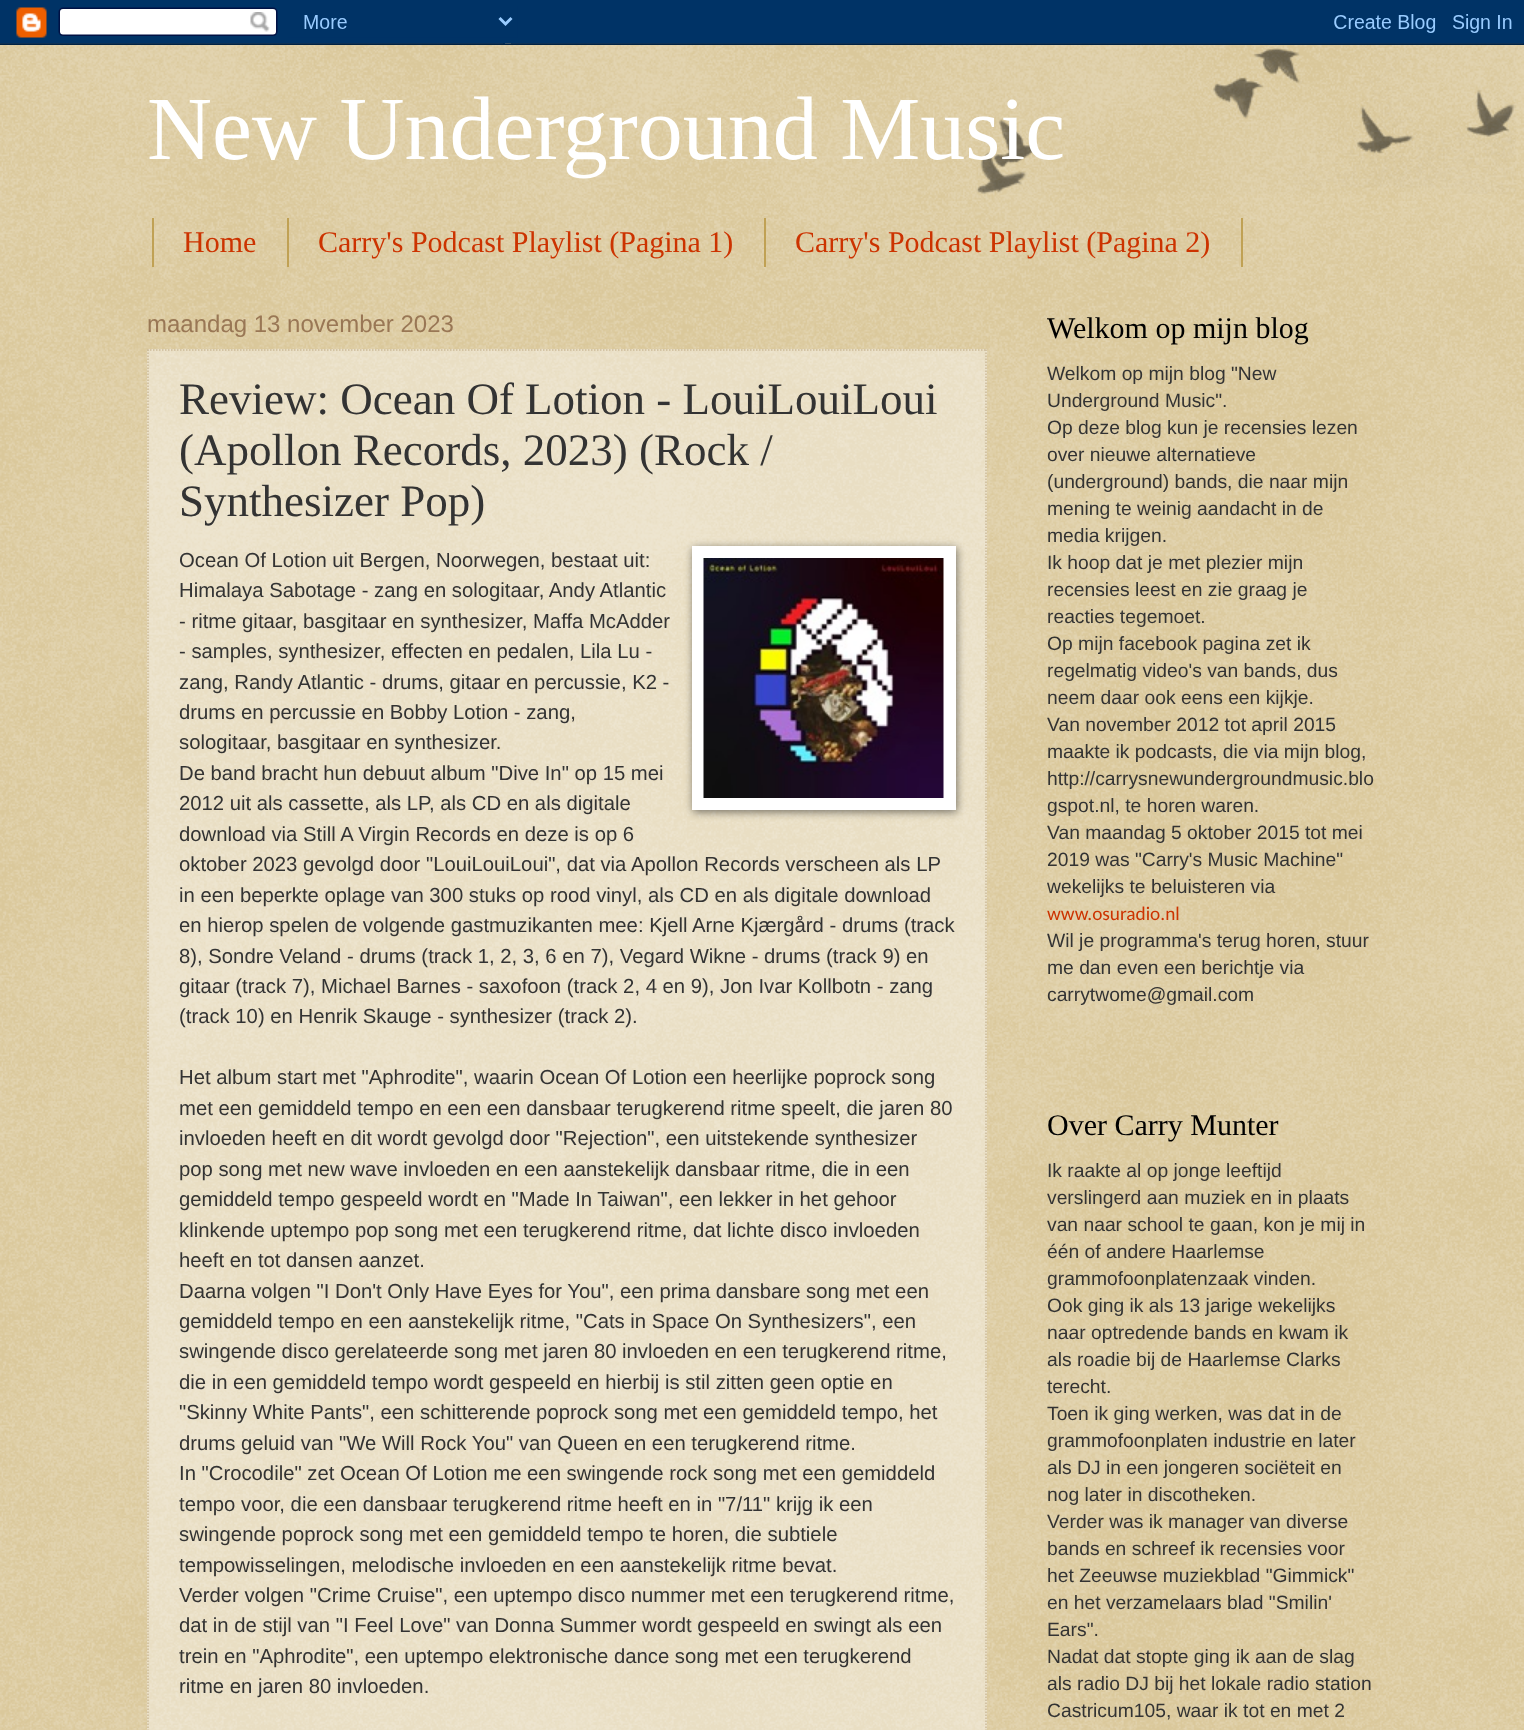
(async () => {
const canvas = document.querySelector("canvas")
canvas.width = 1524
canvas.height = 1730
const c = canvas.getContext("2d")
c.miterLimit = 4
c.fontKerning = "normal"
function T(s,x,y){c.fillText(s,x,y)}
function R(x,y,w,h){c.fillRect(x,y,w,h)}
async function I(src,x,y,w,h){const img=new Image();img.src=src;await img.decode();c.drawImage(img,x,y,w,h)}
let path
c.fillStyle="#c0a154"
R(0,0,1524,1730)
await I("1.png",0,43,1524,1687)
await I("2.png",0,0,1524,45)
await I("3.png",976,48,540,146)
c.font="90px Liberation Serif"
c.fillStyle="#fff"
T("New Underground Music",147,159)
c.fillStyle="#c0a154"
R(287,218,2,49)
R(152,218,2,49)
c.font="30px Liberation Serif"
c.fillStyle="#c30"
T("Home",183,252)
c.fillStyle="#c0a154"
R(764,218,2,49)
c.fillStyle="#c30"
T("Carry's Podcast Playlist (Pagina 1)",318,252)
c.fillStyle="#c0a154"
R(1241,218,2,49)
c.fillStyle="#c30"
T("Carry's Podcast Playlist (Pagina 2)",795,252)
c.font="24px Liberation Sans"
c.fillStyle="#975"
T("maandag 13 november 2023",147,332)
c.fillStyle="#ffffff66"
R(147,349,840,1381)
path = new Path2D("M147 350h840")
c.strokeStyle="#cb9"
c.lineWidth=1.5
c.setLineDash([1.5,1.5])
c.stroke(path)
path = new Path2D("M986 349.5v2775")
c.stroke(path)
path = new Path2D("M148 349.5v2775")
c.stroke(path)
c.font="45px Liberation Serif"
c.fillStyle="#333"
T("Review: Ocean Of Lotion - LouiLouiLoui",179,414)
T("(Apollon Records, 2023) (Rock /",179,465)
T("Synthesizer Pop)",179,516)
c.font="20.3px Liberation Sans"
T("Ocean Of Lotion uit Bergen, Noorwegen, bestaat uit:",179,567)
c.fillStyle="#00000080"
c.filter="blur(4px)"
c.beginPath()
c.rect(693,548,264,264)
c.fill()
c.filter="none"
c.fillStyle="#fff"
R(692,546,264,264)
await I("4.png",703,558,241,240)
c.fillStyle="#333"
T("Himalaya Sabotage - zang en sologitaar, Andy Atlantic",179,597)
T("- ritme gitaar, basgitaar en synthesizer, Maffa McAdder",179,628)
T("- samples, synthesizer, effecten en pedalen, Lila Lu -",179,658)
T("zang, Randy Atlantic - drums, gitaar en percussie, K2 -",179,689)
T("drums en percussie en Bobby Lotion - zang,",179,719)
T("sologitaar, basgitaar en synthesizer.",179,749)
T("De band bracht hun debuut album \"Dive In\" op 15 mei",179,780)
T("2012 uit als cassette, als LP, als CD en als digitale",179,810)
T("download via Still A Virgin Records en deze is op 6",179,841)
T("oktober 2023 gevolgd door \"LouiLouiLoui\", dat via Apollon Records verscheen als LP",179,871)
T("in een beperkte oplage van 300 stuks op rood vinyl, als CD en als digitale download",179,902)
T("en hierop spelen de volgende gastmuzikanten mee: Kjell Arne Kjærgård - drums (track",179,932)
T("8), Sondre Veland - drums (track 1, 2, 3, 6 en 7), Vegard Wikne - drums (track 9) en",179,963)
T("gitaar (track 7), Michael Barnes - saxofoon (track 2, 4 en 9), Jon Ivar Kollbotn - zang",179,993)
T("(track 10) en Henrik Skauge - synthesizer (track 2).",179,1023)
T("Het album start met \"Aphrodite\", waarin Ocean Of Lotion een heerlijke poprock song",179,1084)
T("met een gemiddeld tempo en een een dansbaar terugkerend ritme speelt, die jaren 80",179,1115)
T("invloeden heeft en dit wordt gevolgd door \"Rejection\", een uitstekende synthesizer",179,1145)
T("pop song met new wave invloeden en een aanstekelijk dansbaar ritme, die in een",179,1176)
T("gemiddeld tempo gespeeld wordt en \"Made In Taiwan\", een lekker in het gehoor",179,1206)
T("klinkende uptempo pop song met een terugkerend ritme, dat lichte disco invloeden",179,1237)
T("heeft en tot dansen aanzet.",179,1267)
T("Daarna volgen \"I Don't Only Have Eyes for You\", een prima dansbare song met een",179,1298)
T("gemiddeld tempo en een aanstekelijk ritme, \"Cats in Space On Synthesizers\", een",179,1328)
T("swingende disco gerelateerde song met jaren 80 invloeden en een terugkerend ritme,",179,1358)
T("die in een gemiddeld tempo wordt gespeeld en hierbij is stil zitten geen optie en",179,1389)
T("\"Skinny White Pants\", een schitterende poprock song met een gemiddeld tempo, het",179,1419)
T("drums geluid van \"We Will Rock You\" van Queen en een terugkerend ritme.",179,1450)
T("In \"Crocodile\" zet Ocean Of Lotion me een swingende rock song met een gemiddeld",179,1480)
T("tempo voor, die een dansbaar terugkerend ritme heeft en in \"7/11\" krijg ik een",179,1511)
T("swingende poprock song met een gemiddeld tempo te horen, die subtiele",179,1541)
T("tempowisselingen, melodische invloeden en een aanstekelijk ritme bevat.",179,1572)
T("Verder volgen \"Crime Cruise\", een uptempo disco nummer met een terugkerend ritme,",179,1602)
T("dat in de stijl van \"I Feel Love\" van Donna Summer wordt gespeeld en swingt als een",179,1632)
T("trein en \"Aphrodite\", een uptempo elektronische dance song met een terugkerend",179,1663)
T("ritme en jaren 80 invloeden.",179,1693)
c.font="30px Liberation Serif"
c.fillStyle="#000"
T("Welkom op mijn blog",1047,338)
c.font="19.3px Liberation Sans"
c.fillStyle="#333"
T("Welkom op mijn blog \"New",1047,380)
T("Underground Music\".",1047,407)
T("Op deze blog kun je recensies lezen",1047,434)
T("over nieuwe alternatieve",1047,461)
T("(underground) bands, die naar mijn",1047,488)
T("mening te weinig aandacht in de",1047,515)
T("media krijgen.",1047,542)
T("Ik hoop dat je met plezier mijn",1047,569)
T("recensies leest en zie graag je",1047,596)
T("reacties tegemoet.",1047,623)
T("Op mijn facebook pagina zet ik",1047,650)
T("regelmatig video's van bands, dus",1047,677)
T("neem daar ook eens een kijkje.",1047,704)
T("Van november 2012 tot april 2015",1047,731)
T("maakte ik podcasts, die via mijn blog,",1047,758)
T("http://carrysnewundergroundmusic.blo",1047,785)
T("gspot.nl, te horen waren.",1047,812)
T("Van maandag 5 oktober 2015 tot mei",1047,839)
T("2019 was \"Carry's Music Machine\"",1047,866)
T("wekelijks te beluisteren via",1047,893)
c.font="19.3px Carlito"
c.fillStyle="#c30"
T("www.osuradio.nl",1047,920)
c.font="19.3px Liberation Sans"
c.fillStyle="#333"
T("Wil je programma's terug horen, stuur",1047,947)
T("me dan even een berichtje via",1047,974)
T("carrytwome@gmail.com",1047,1001)
c.font="30px Liberation Serif"
c.fillStyle="#000"
T("Over Carry Munter",1047,1135)
c.font="19.3px Liberation Sans"
c.fillStyle="#333"
T("Ik raakte al op jonge leeftijd",1047,1177)
T("verslingerd aan muziek en in plaats",1047,1204)
T("van naar school te gaan, kon je mij in",1047,1231)
T("één of andere Haarlemse",1047,1258)
T("grammofoonplatenzaak vinden.",1047,1285)
T("Ook ging ik als 13 jarige wekelijks",1047,1312)
T("naar optredende bands en kwam ik",1047,1339)
T("als roadie bij de Haarlemse Clarks",1047,1366)
T("terecht.",1047,1393)
T("Toen ik ging werken, was dat in de",1047,1420)
T("grammofoonplaten industrie en later",1047,1447)
T("als DJ in een jongeren sociëteit en",1047,1474)
T("nog later in discotheken.",1047,1501)
T("Verder was ik manager van diverse",1047,1528)
T("bands en schreef ik recensies voor",1047,1555)
T("het Zeeuwse muziekblad \"Gimmick\"",1047,1582)
T("en het verzamelaars blad \"Smilin'",1047,1609)
T("Ears\".",1047,1636)
T("Nadat dat stopte ging ik aan de slag",1047,1663)
T("als radio DJ bij het lokale radio station",1047,1690)
T("Castricum105, waar ik tot en met 2",1047,1717)
})()
